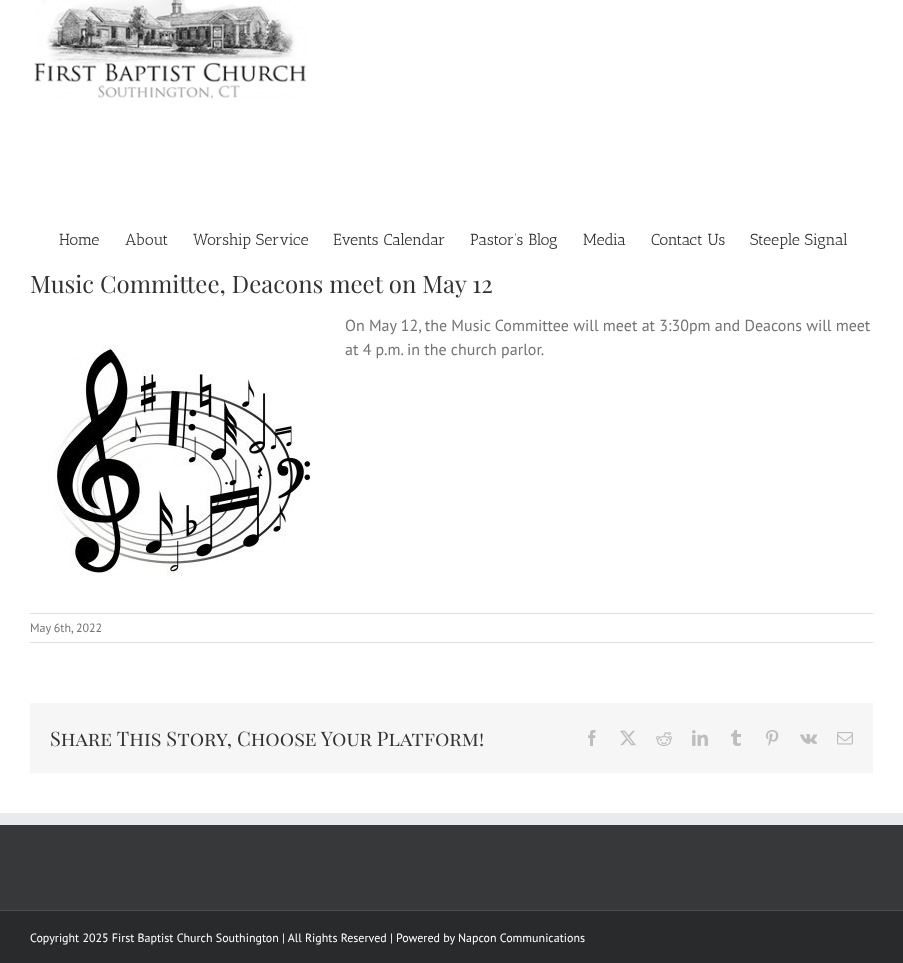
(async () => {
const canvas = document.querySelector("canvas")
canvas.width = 903
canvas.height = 963
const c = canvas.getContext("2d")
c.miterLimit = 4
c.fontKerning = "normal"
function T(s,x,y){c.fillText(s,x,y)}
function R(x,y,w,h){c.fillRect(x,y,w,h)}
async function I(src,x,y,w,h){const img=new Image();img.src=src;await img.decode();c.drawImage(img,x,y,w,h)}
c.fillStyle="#fff"
R(0,0,903,963)
await I("1.png",34,0,273,99)
c.font="16px Antic Slab"
c.fillStyle="#333"
T("Home",59,245)
T("About",125,245)
T("Worship Service",193,245)
T("Events Calendar",333,245)
T("Pastor’s Blog",470,245)
T("Media",583,245)
T("Contact Us",651,245)
T("Steeple Signal",750,245)
c.font="24px Playfair Display"
T("Music Committee, Deacons meet on May 12",30,293)
c.font="16px PT Sans"
c.fillStyle="#747474"
T("On May 12, the Music Committee will meet at 3:30pm and Deacons will meet",345,331)
await I("2.png",54,345,258,232)
T("at 4 p.m. in the church parlor.",345,355)
c.fillStyle="#e0dede"
R(30,613,843,1)
R(30,642,843,1)
c.font="12px PT Sans"
c.fillStyle="#747474"
T("May 6th, 2022",30,632)
c.fillStyle="#f6f6f6"
R(30,703,843,70)
c.font="20px Playfair Display SC"
c.fillStyle="#333"
T("Share This Story, Choose Your Platform!",50,746)
await I("3.png",588,730,8,16)
await I("4.png",620,730,16,16)
await I("5.png",656,732,16,14)
await I("6.png",692,730,16,16)
await I("7.png",731,730,10,16)
await I("8.png",765,730,14,16)
await I("9.png",800,734,17,10)
await I("10.png",837,732,16,13)
c.fillStyle="#363839"
R(0,825,903,85)
c.fillStyle="#e9eaee"
R(0,813,903,12)
c.fillStyle="#282a2b"
R(0,911,903,52)
c.fillStyle="#4b4c4d"
R(0,910,903,1)
c.font="12px PT Sans"
c.fillStyle="#fff"
T("Copyright 2025 First Baptist Church Southington | All Rights Reserved | Powered by Napcon Communications",30,942)
})()
